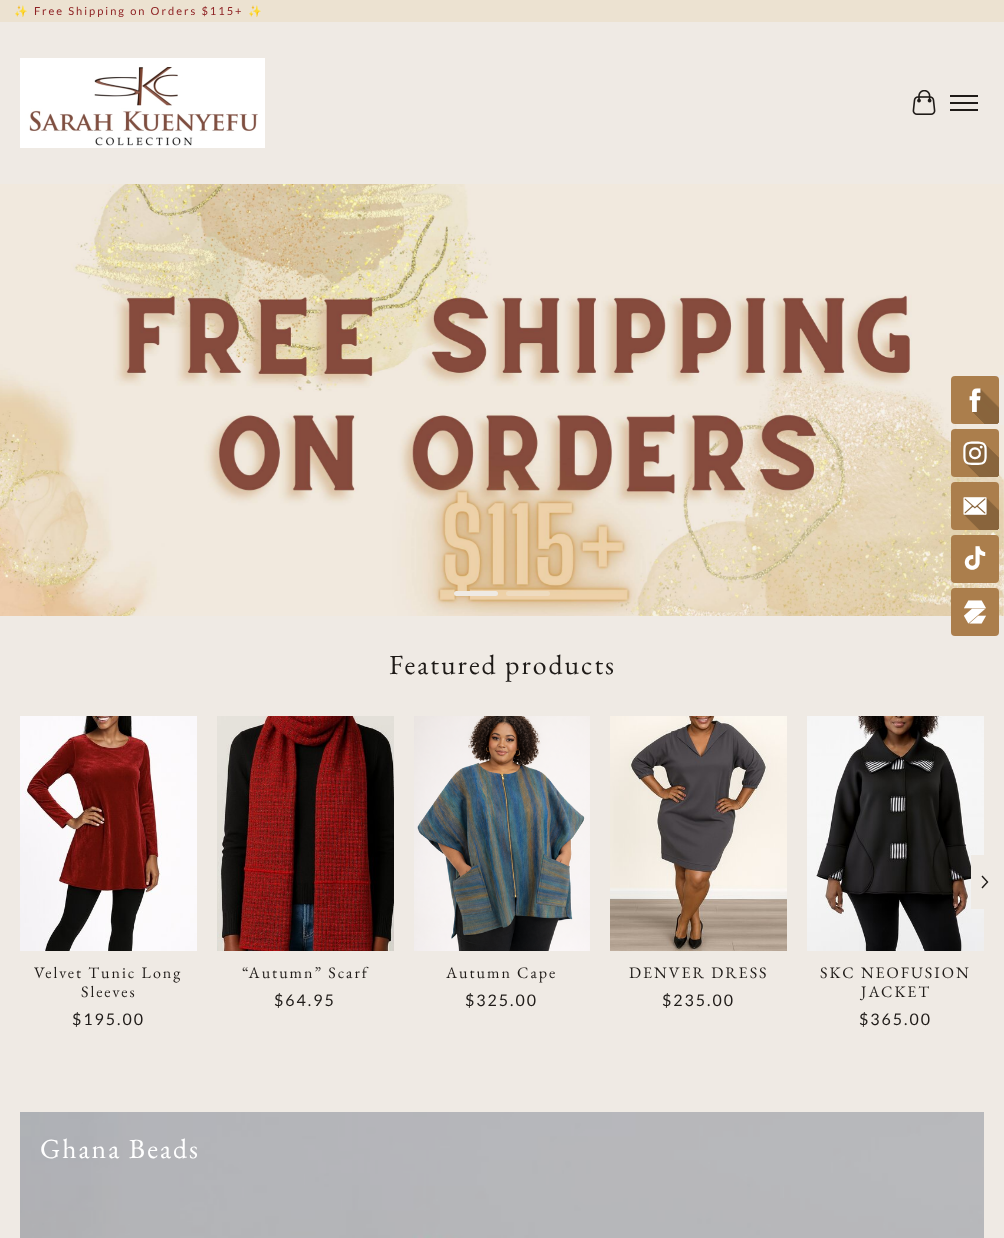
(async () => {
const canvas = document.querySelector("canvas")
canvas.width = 1004
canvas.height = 1238
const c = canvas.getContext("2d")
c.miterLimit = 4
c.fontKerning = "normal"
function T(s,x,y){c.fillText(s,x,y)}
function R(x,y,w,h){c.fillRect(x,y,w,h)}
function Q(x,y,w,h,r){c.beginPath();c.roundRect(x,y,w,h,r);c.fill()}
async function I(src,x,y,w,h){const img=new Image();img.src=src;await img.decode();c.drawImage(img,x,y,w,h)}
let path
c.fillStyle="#efeae4"
R(0,0,1004,1238)
c.fillStyle="#ece2d1"
R(0,0,1004,22)
c.letterSpacing="2px"
c.font="11.1px Noto Color Emoji"
c.fillStyle="#8f2224"
T("✨",14,15)
c.font="11.1px Lato"
T("Free Shipping on Orders $115+",34,15)
c.font="11.1px Noto Color Emoji"
T("✨",248,15)
await I("1.png",20,58,245,90)
await I("2.png",912,90,24,25)
c.fillStyle="#1f1b18"
R(950,102,28,2)
R(950,95,28,2)
R(950,109,28,2)
await I("3.png",0,184,1004,432)
c.fillStyle="#efeae4"
R(979,375,25,50)
Q(454,591,44,5,2.5)
c.fillStyle="#efeae466"
Q(506,591,44,5,2.5)
await I("4.png",951,376,48,260)
c.font="27.75px EB Garamond"
c.fillStyle="#1f1b18"
T("Featured products",389,674)
await I("9.png",807,716,177,235)
c.fillStyle="#efeae4"
R(971,855,13,54)
path = new Path2D("M982 888l5.5-6l-5.5-6")
c.strokeStyle="#1f1b18"
c.lineWidth=1.4
c.stroke(path)
await I("5.png",20,716,177,235)
c.font="16px EB Garamond"
c.fillStyle="#1f1b18"
T("Velvet Tunic Long",34,978)
T("Sleeves",81,997)
c.font="16px Lato"
T("$195.00",72,1025)
await I("6.png",217,716,177,235)
c.font="16px EB Garamond"
T("“Autumn” Scarf",242,978)
c.font="16px Lato"
T("$64.95",274,1006)
await I("7.png",414,716,176,235)
c.font="16px EB Garamond"
T("Autumn Cape",446,978)
c.font="16px Lato"
T("$325.00",465,1006)
await I("8.png",610,716,177,235)
c.font="16px EB Garamond"
T("DENVER DRESS",629,978)
c.font="16px Lato"
T("$235.00",662,1006)
c.font="16px EB Garamond"
T("SKC NEOFUSION",820,978)
T("JACKET",861,997)
c.font="16px Lato"
T("$365.00",859,1025)
await I("10.png",20,1112,964,126)
c.font="27.75px EB Garamond"
c.fillStyle="#fff"
T("Ghana Beads",40,1158)
})()
